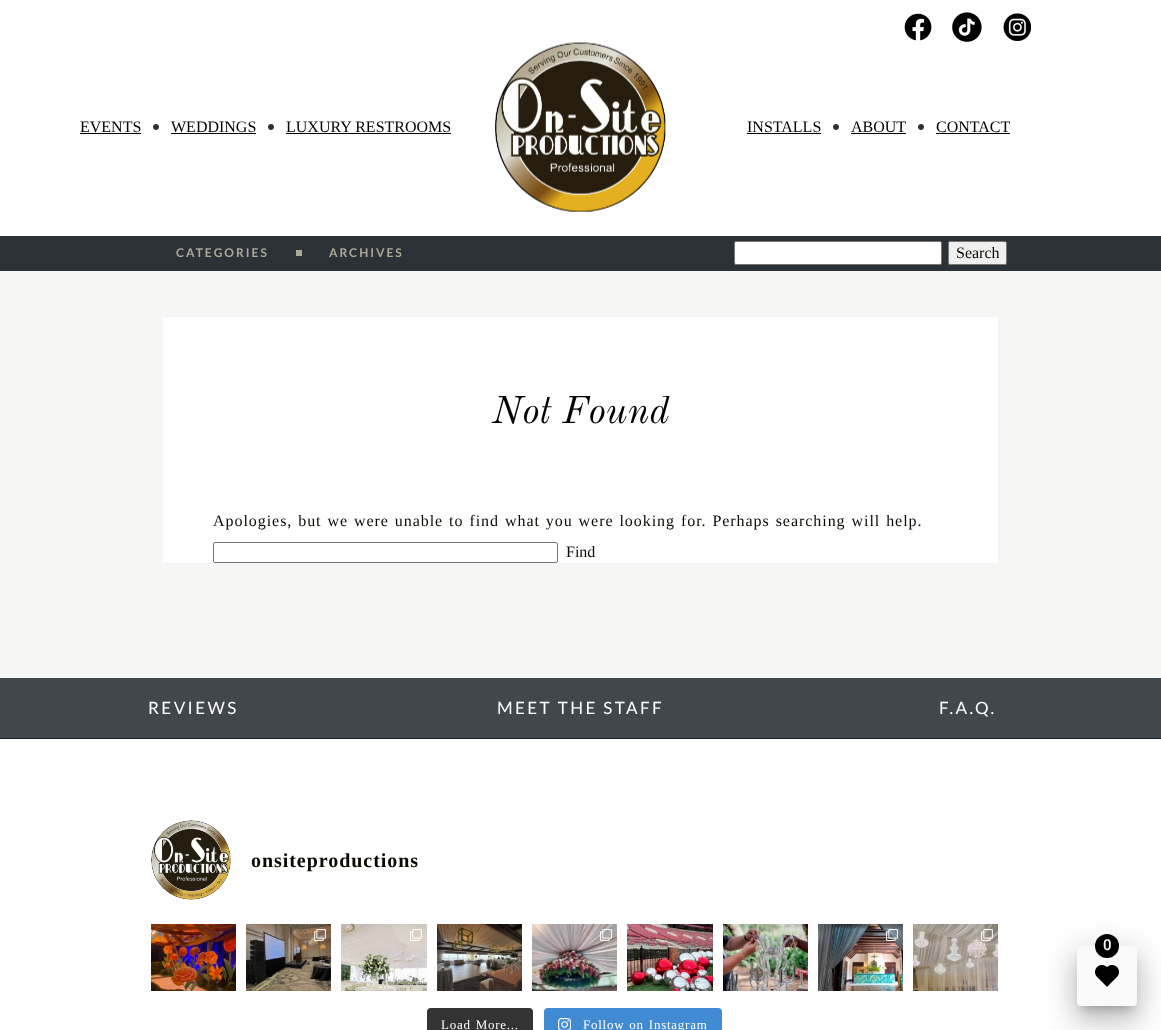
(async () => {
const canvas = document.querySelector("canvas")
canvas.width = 1161
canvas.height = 1030
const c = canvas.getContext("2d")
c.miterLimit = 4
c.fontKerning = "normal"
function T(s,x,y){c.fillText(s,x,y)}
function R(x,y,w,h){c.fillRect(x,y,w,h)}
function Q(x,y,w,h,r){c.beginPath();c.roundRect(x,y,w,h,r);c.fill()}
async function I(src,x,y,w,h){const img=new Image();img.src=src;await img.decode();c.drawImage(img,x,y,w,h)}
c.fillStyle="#f6f6f4"
R(0,0,1161,1030)
c.fillStyle="#fff"
R(0,0,1161,236)
await I("1.png",904,13,28,28)
await I("2.png",952,12,30,30)
await I("3.png",1003,13,28,28)
c.font="16px Liberation Serif"
c.fillStyle="#000"
T("EVENTS",80,132)
R(80,133,61,1)
await I("4.png",153,124,6,6)
T("WEDDINGS",171,132)
R(171,133,85,1)
await I("4.png",268,124,6,6)
T("LUXURY RESTROOMS",286,132)
R(286,133,165,1)
await I("5.png",495,42,171,170)
T("INSTALLS",747,132)
R(747,133,74,1)
await I("4.png",833,124,6,6)
T("ABOUT",851,132)
R(851,133,55,1)
await I("4.png",918,124,6,6)
T("CONTACT",936,132)
R(936,133,74,1)
c.fillStyle="#2a3238"
R(0,236,1161,35)
c.letterSpacing="2px"
c.font="bold 12px Lato"
c.fillStyle="#aca998"
T("CATEGORIES",176,257)
R(296,250,6,6)
T("ARCHIVES",329,257)
c.fillStyle="#fff"
c.beginPath()
c.roundRect(734.5,241.5,207,23,1.5)
c.fill()
c.strokeStyle="#767676"
c.stroke()
c.fillStyle="#efefef"
c.beginPath()
c.roundRect(948.5,241.5,58,23,1.5)
c.fill()
c.stroke()
c.letterSpacing="0px"
c.font="16px Liberation Serif"
c.fillStyle="#0b0900"
T("Search",956,258)
c.fillStyle="#fff"
R(163,317,835,246)
c.font="italic 38px Old Standard TT"
c.fillStyle="#000"
T("Not Found",492,423)
c.letterSpacing="0.95px"
c.wordSpacing="1px"
c.font="16px Liberation Serif"
c.fillStyle="#0b0900"
T("Apologies, but we were unable to find what you were looking for. Perhaps searching will help.",213,526)
c.beginPath()
c.roundRect(213.5,542.5,344,20,1.5)
c.stroke()
c.letterSpacing="0px"
c.wordSpacing="0px"
T("Find",566,557)
c.fillStyle="#40474d"
R(0,678,1161,60)
c.letterSpacing="2.4px"
c.font="17px Lato"
c.fillStyle="#fff"
T("REVIEWS",148,714)
T("MEET THE STAFF",497,714)
T("F.A.Q.",939,714)
R(0,739,1161,291)
c.fillStyle="#18222a"
R(0,738,1161,1)
await I("6.png",151,820,80,80)
c.letterSpacing="0.95px"
c.font="bold 20px Liberation Serif"
c.fillStyle="#0b0900"
T("onsiteproductions",251,867)
await I("7.png",151,924,85,67)
await I("8.png",246,924,85,67)
await I("9.png",314,929,12,12)
await I("10.png",341,924,86,67)
await I("11.png",410,929,12,12)
await I("12.png",437,924,85,67)
await I("13.png",532,924,85,67)
await I("14.png",600,929,12,12)
await I("15.png",627,924,86,67)
await I("16.png",723,924,85,67)
await I("17.png",818,924,85,67)
await I("18.png",886,929,12,12)
await I("19.png",913,924,85,67)
await I("20.png",981,929,12,12)
c.fillStyle="#333"
Q(427,1008,106,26,4)
c.letterSpacing="0.75px"
c.wordSpacing="1px"
c.font="13px Liberation Serif"
c.fillStyle="#fff"
T("Load More...",441,1029)
c.fillStyle="#408bd1"
Q(544,1008,178,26,4)
await I("21.png",558,1018,13,12)
c.fillStyle="#fff"
T("Follow on Instagram",583,1029)
c.fillStyle="#00000033"
c.filter="blur(5px)"
c.beginPath()
c.rect(1082,959,50,50)
c.fill()
c.filter="none"
c.fillStyle="#0000001f"
c.filter="blur(15px)"
c.beginPath()
c.roundRect(1072,947,70,70,9)
c.fill()
c.filter="none"
c.fillStyle="#00000024"
c.filter="blur(12px)"
c.beginPath()
c.roundRect(1075,960,64,64,6)
c.fill()
c.filter="none"
c.fillStyle="#fafafa"
Q(1077,946,60,60,4)
c.fillStyle="#000"
c.beginPath()
c.arc(1107,946,12,0,7)
c.fill()
c.letterSpacing="-1px"
c.wordSpacing="0px"
c.font="500 15px Roboto"
c.fillStyle="#fff"
T("0",1103,950)
await I("22.png",1095,965,24,22)
})()
